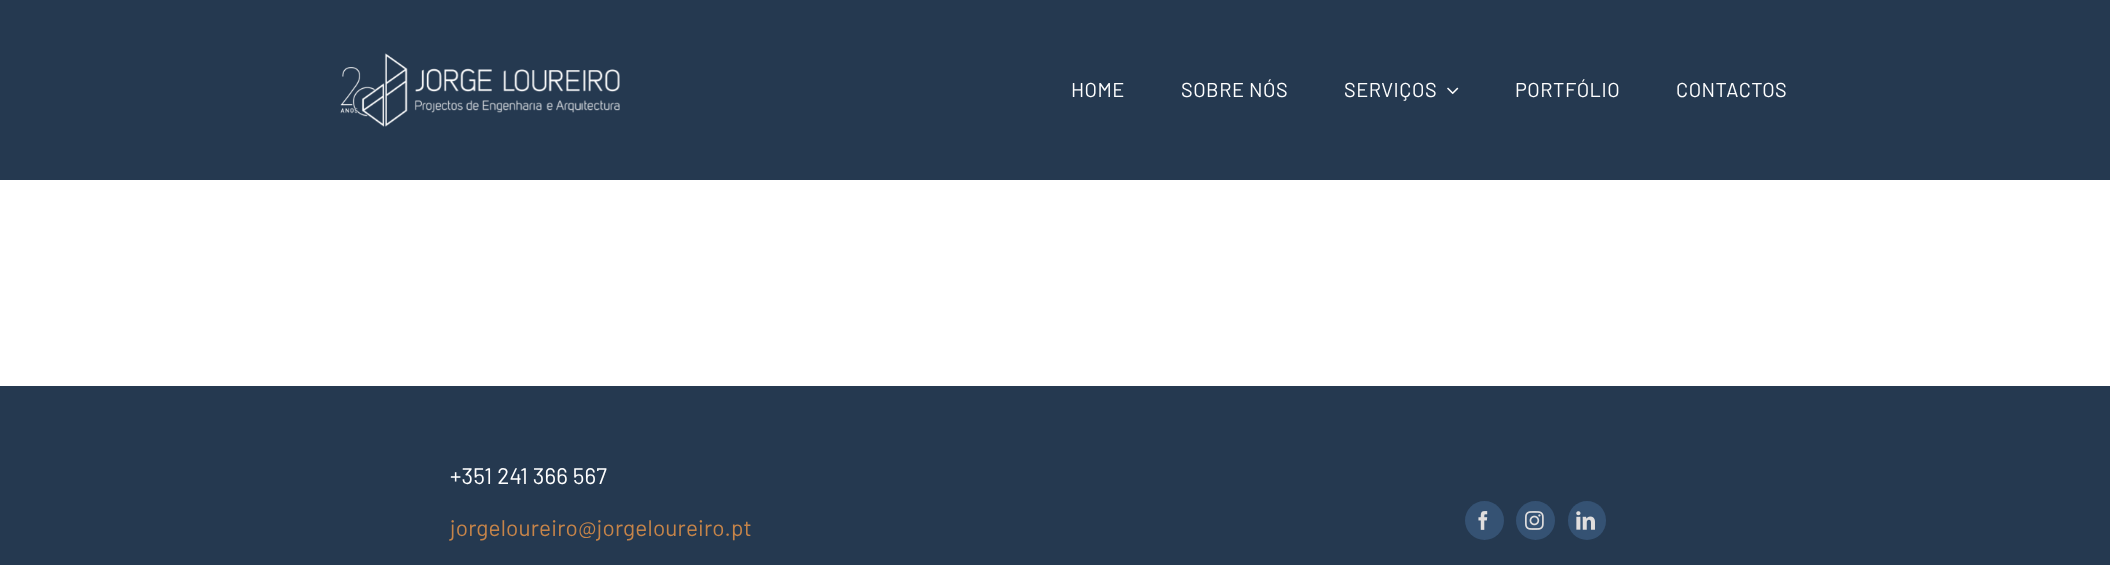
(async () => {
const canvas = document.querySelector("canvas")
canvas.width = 2110
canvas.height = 565
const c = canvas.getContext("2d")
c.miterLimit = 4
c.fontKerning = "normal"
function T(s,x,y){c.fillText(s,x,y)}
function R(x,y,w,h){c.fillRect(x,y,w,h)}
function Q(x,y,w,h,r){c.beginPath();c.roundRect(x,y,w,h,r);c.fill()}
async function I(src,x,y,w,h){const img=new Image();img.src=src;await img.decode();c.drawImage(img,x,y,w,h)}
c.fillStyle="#fff"
R(0,0,2110,565)
c.fillStyle="#253950"
R(0,0,2110,180)
await I("1.png",340,53,280,74)
c.letterSpacing="0.5px"
c.font="20px Barlow"
c.fillStyle="#fff"
T("HOME",1071,97)
T("SOBRE NÓS",1181,97)
T("SERVIÇOS",1344,97)
await I("2.png",1447,87,12,8)
T("PORTFÓLIO",1515,97)
T("CONTACTOS",1676,97)
c.fillStyle="#253950"
R(0,386,2110,179)
c.letterSpacing="0.2px"
c.font="22.5px Barlow"
c.fillStyle="#fff"
T("+351 241 366 567",450,484)
c.fillStyle="#c68449"
T("jorgeloureiro@jorgeloureiro.pt",450,536)
c.fillStyle="#355273"
c.beginPath()
c.arc(1484.5,520.5,19.5,0,7)
c.fill()
await I("3.png",1478,511,10,19)
c.beginPath()
c.arc(1535.5,520.5,19.5,0,7)
c.fill()
await I("4.png",1525,511,19,19)
Q(1568,501,38,39,19)
await I("5.png",1576,511,19,19)
})()
